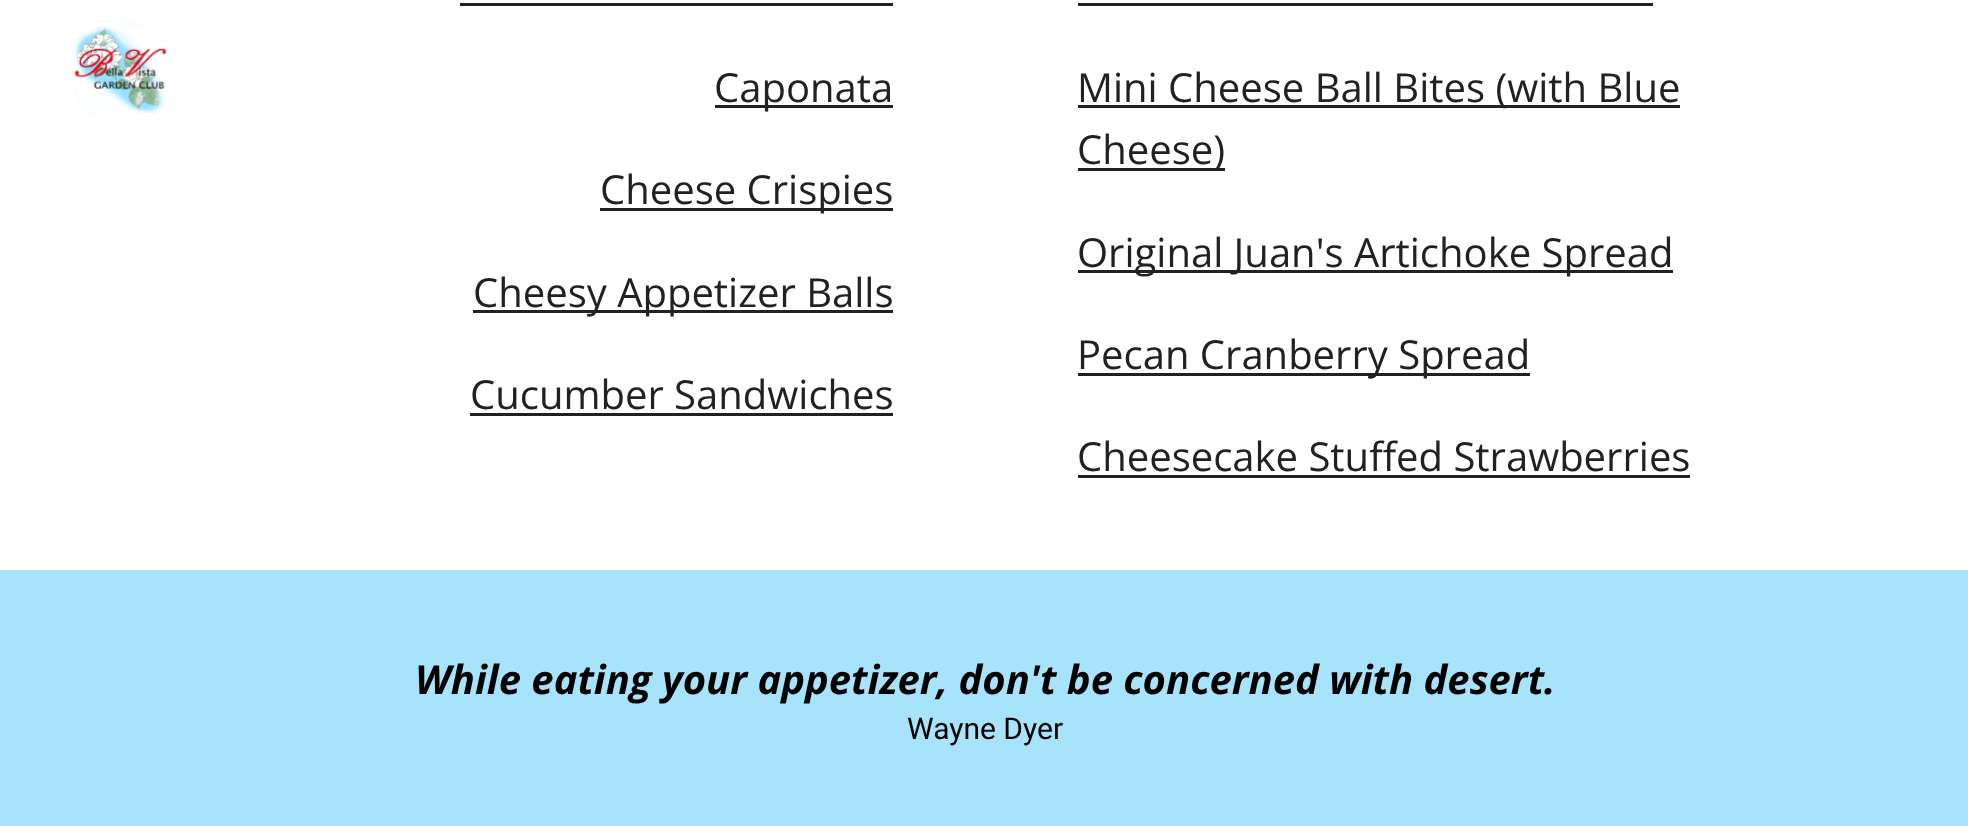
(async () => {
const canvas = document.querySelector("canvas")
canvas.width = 1968
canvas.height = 826
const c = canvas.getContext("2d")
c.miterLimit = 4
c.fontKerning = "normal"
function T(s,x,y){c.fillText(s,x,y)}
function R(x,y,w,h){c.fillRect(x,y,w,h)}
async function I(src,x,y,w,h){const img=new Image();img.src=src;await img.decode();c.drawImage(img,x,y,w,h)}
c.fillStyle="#fff"
R(0,0,1968,826)
await I("1.png",74,20,93,94)
c.fillStyle="#212121"
R(460,3,433,3)
R(715,105,178,3)
c.font="40px Open Sans"
T("Caponata",714,102)
R(600,208,293,3)
T("Cheese Crispies",600,204)
R(473,310,420,3)
T("Cheesy Appetizer Balls",473,307)
T("Cucumber Sandwiches",470,409)
R(470,413,423,3)
R(1078,3,575,3)
R(1078,105,602,3)
T("Mini Cheese Ball Bites (with Blue",1077,102)
R(1078,168,147,3)
T("Cheese)",1077,164)
R(1078,270,595,3)
T("Original Juan's Artichoke Spread",1077,267)
R(1078,373,452,3)
T("Pecan Cranberry Spread",1077,369)
T("Cheesecake Stuffed Strawberries",1077,471)
R(1078,475,612,3)
c.fillStyle="#a7e3fb"
R(0,570,1968,256)
c.font="italic bold 40px Open Sans"
c.fillStyle="#000"
T("While eating your appetizer, don't be concerned with desert.",415,694)
c.font="30px Roboto"
T("Wayne Dyer",907,739)
})()
